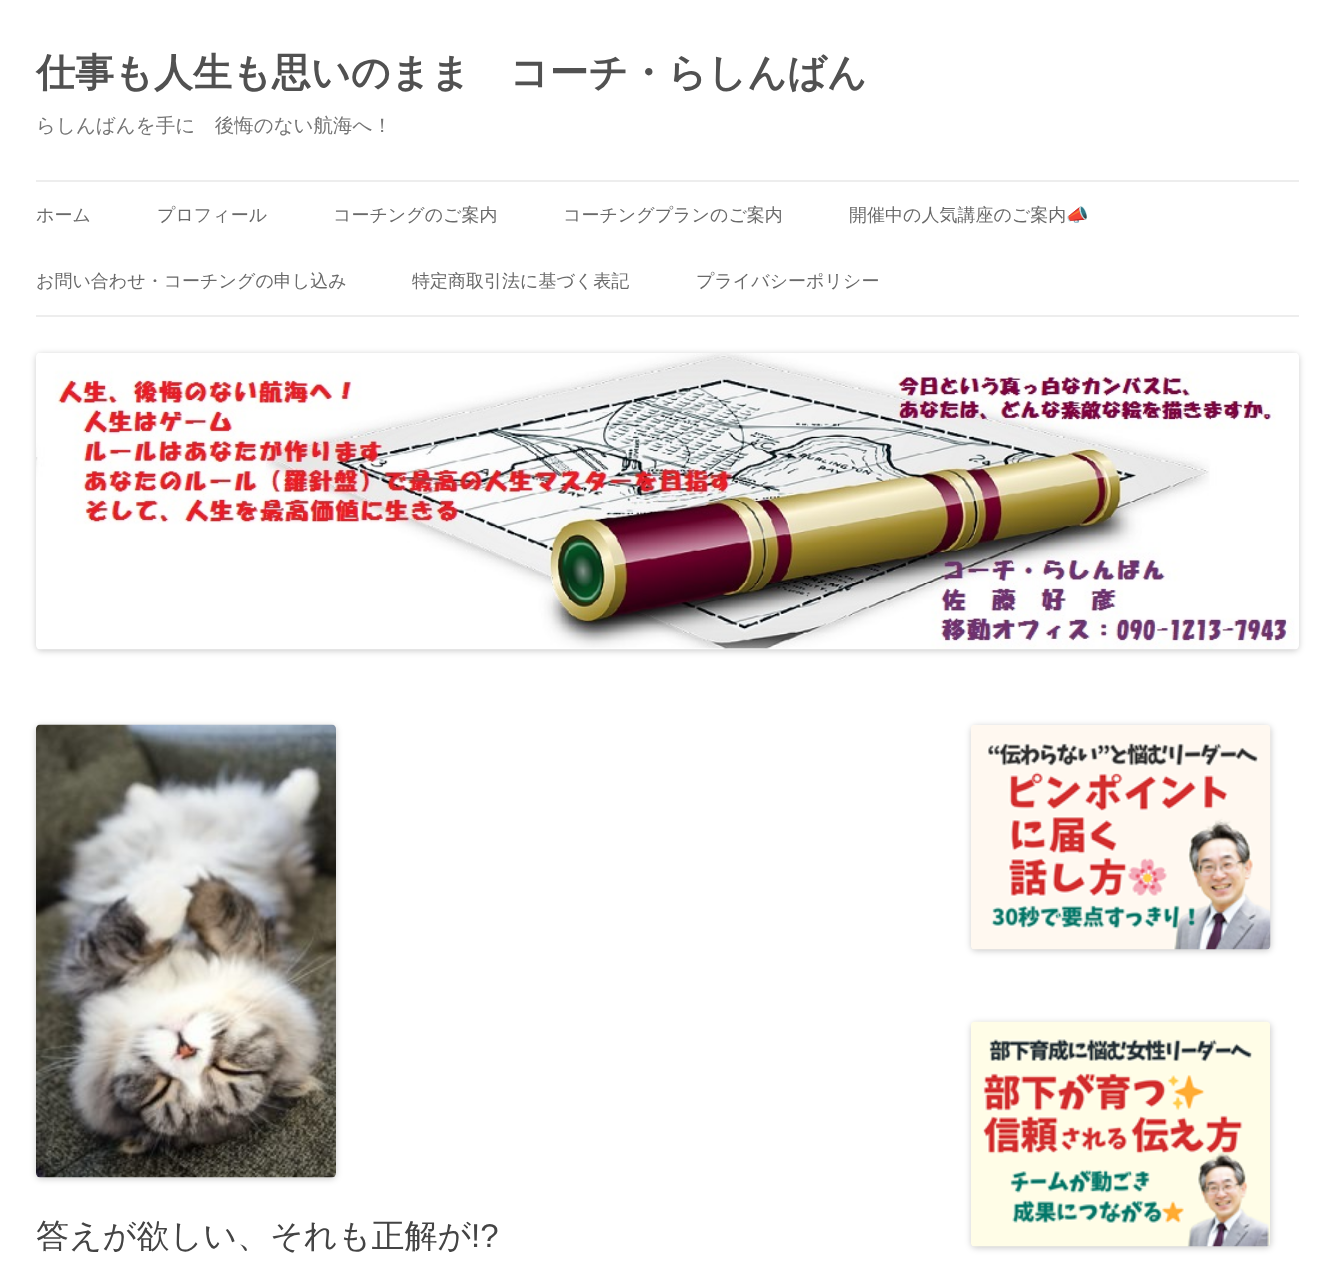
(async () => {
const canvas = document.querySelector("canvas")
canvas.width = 1334
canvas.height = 1271
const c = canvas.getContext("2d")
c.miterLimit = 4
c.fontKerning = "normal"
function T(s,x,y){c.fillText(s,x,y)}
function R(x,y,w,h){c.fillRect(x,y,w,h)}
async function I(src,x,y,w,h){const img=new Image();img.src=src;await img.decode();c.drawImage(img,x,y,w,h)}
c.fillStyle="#fff"
R(0,0,1334,1271)
c.font="bold 39px WenQuanYi Zen Hei"
c.fillStyle="#515151"
T("仕事も人生も思いのまま　コーチ・らしんばん",36,86)
c.font="500 19.5px WenQuanYi Zen Hei"
c.fillStyle="#757575"
T("らしんばんを手に　後悔のない航海へ！",36,132)
c.fillStyle="#ededed"
R(36,180,1263,2)
R(36,315,1263,2)
c.font="500 18px WenQuanYi Zen Hei"
c.fillStyle="#6a6a6a"
T("ホーム",36,221)
T("プロフィール",157,221)
T("コーチングのご案内",333,221)
T("コーチングプランのご案内",563,221)
T("開催中の人気講座のご案内",849,221)
c.font="18px Noto Color Emoji"
T("📣",1066,221)
c.font="500 18px WenQuanYi Zen Hei"
T("お問い合わせ・コーチングの申し込み",36,287)
T("特定商取引法に基づく表記",412,287)
T("プライバシーポリシー",696,287)
c.fillStyle="#00000033"
c.filter="blur(3px)"
c.beginPath()
c.roundRect(36,354,1263,297,5)
c.fill()
c.filter="none"
await I("1.png",36,353,1263,297)
c.filter="blur(3px)"
c.beginPath()
c.roundRect(36,726,300,453,5)
c.fill()
c.filter="none"
await I("2.png",36,724,300,454)
c.font="500 33px WenQuanYi Zen Hei"
c.fillStyle="#444"
T("答えが欲しい、それも正解が",36,1247)
c.font="33px Liberation Sans"
T("!?",471,1247)
c.fillStyle="#00000033"
c.filter="blur(3px)"
c.beginPath()
c.roundRect(971,726,300,225,5)
c.fill()
c.filter="none"
await I("3.png",971,725,300,225)
c.filter="blur(3px)"
c.beginPath()
c.roundRect(971,1023,300,225,5)
c.fill()
c.filter="none"
await I("4.png",971,1021,299,226)
})()
